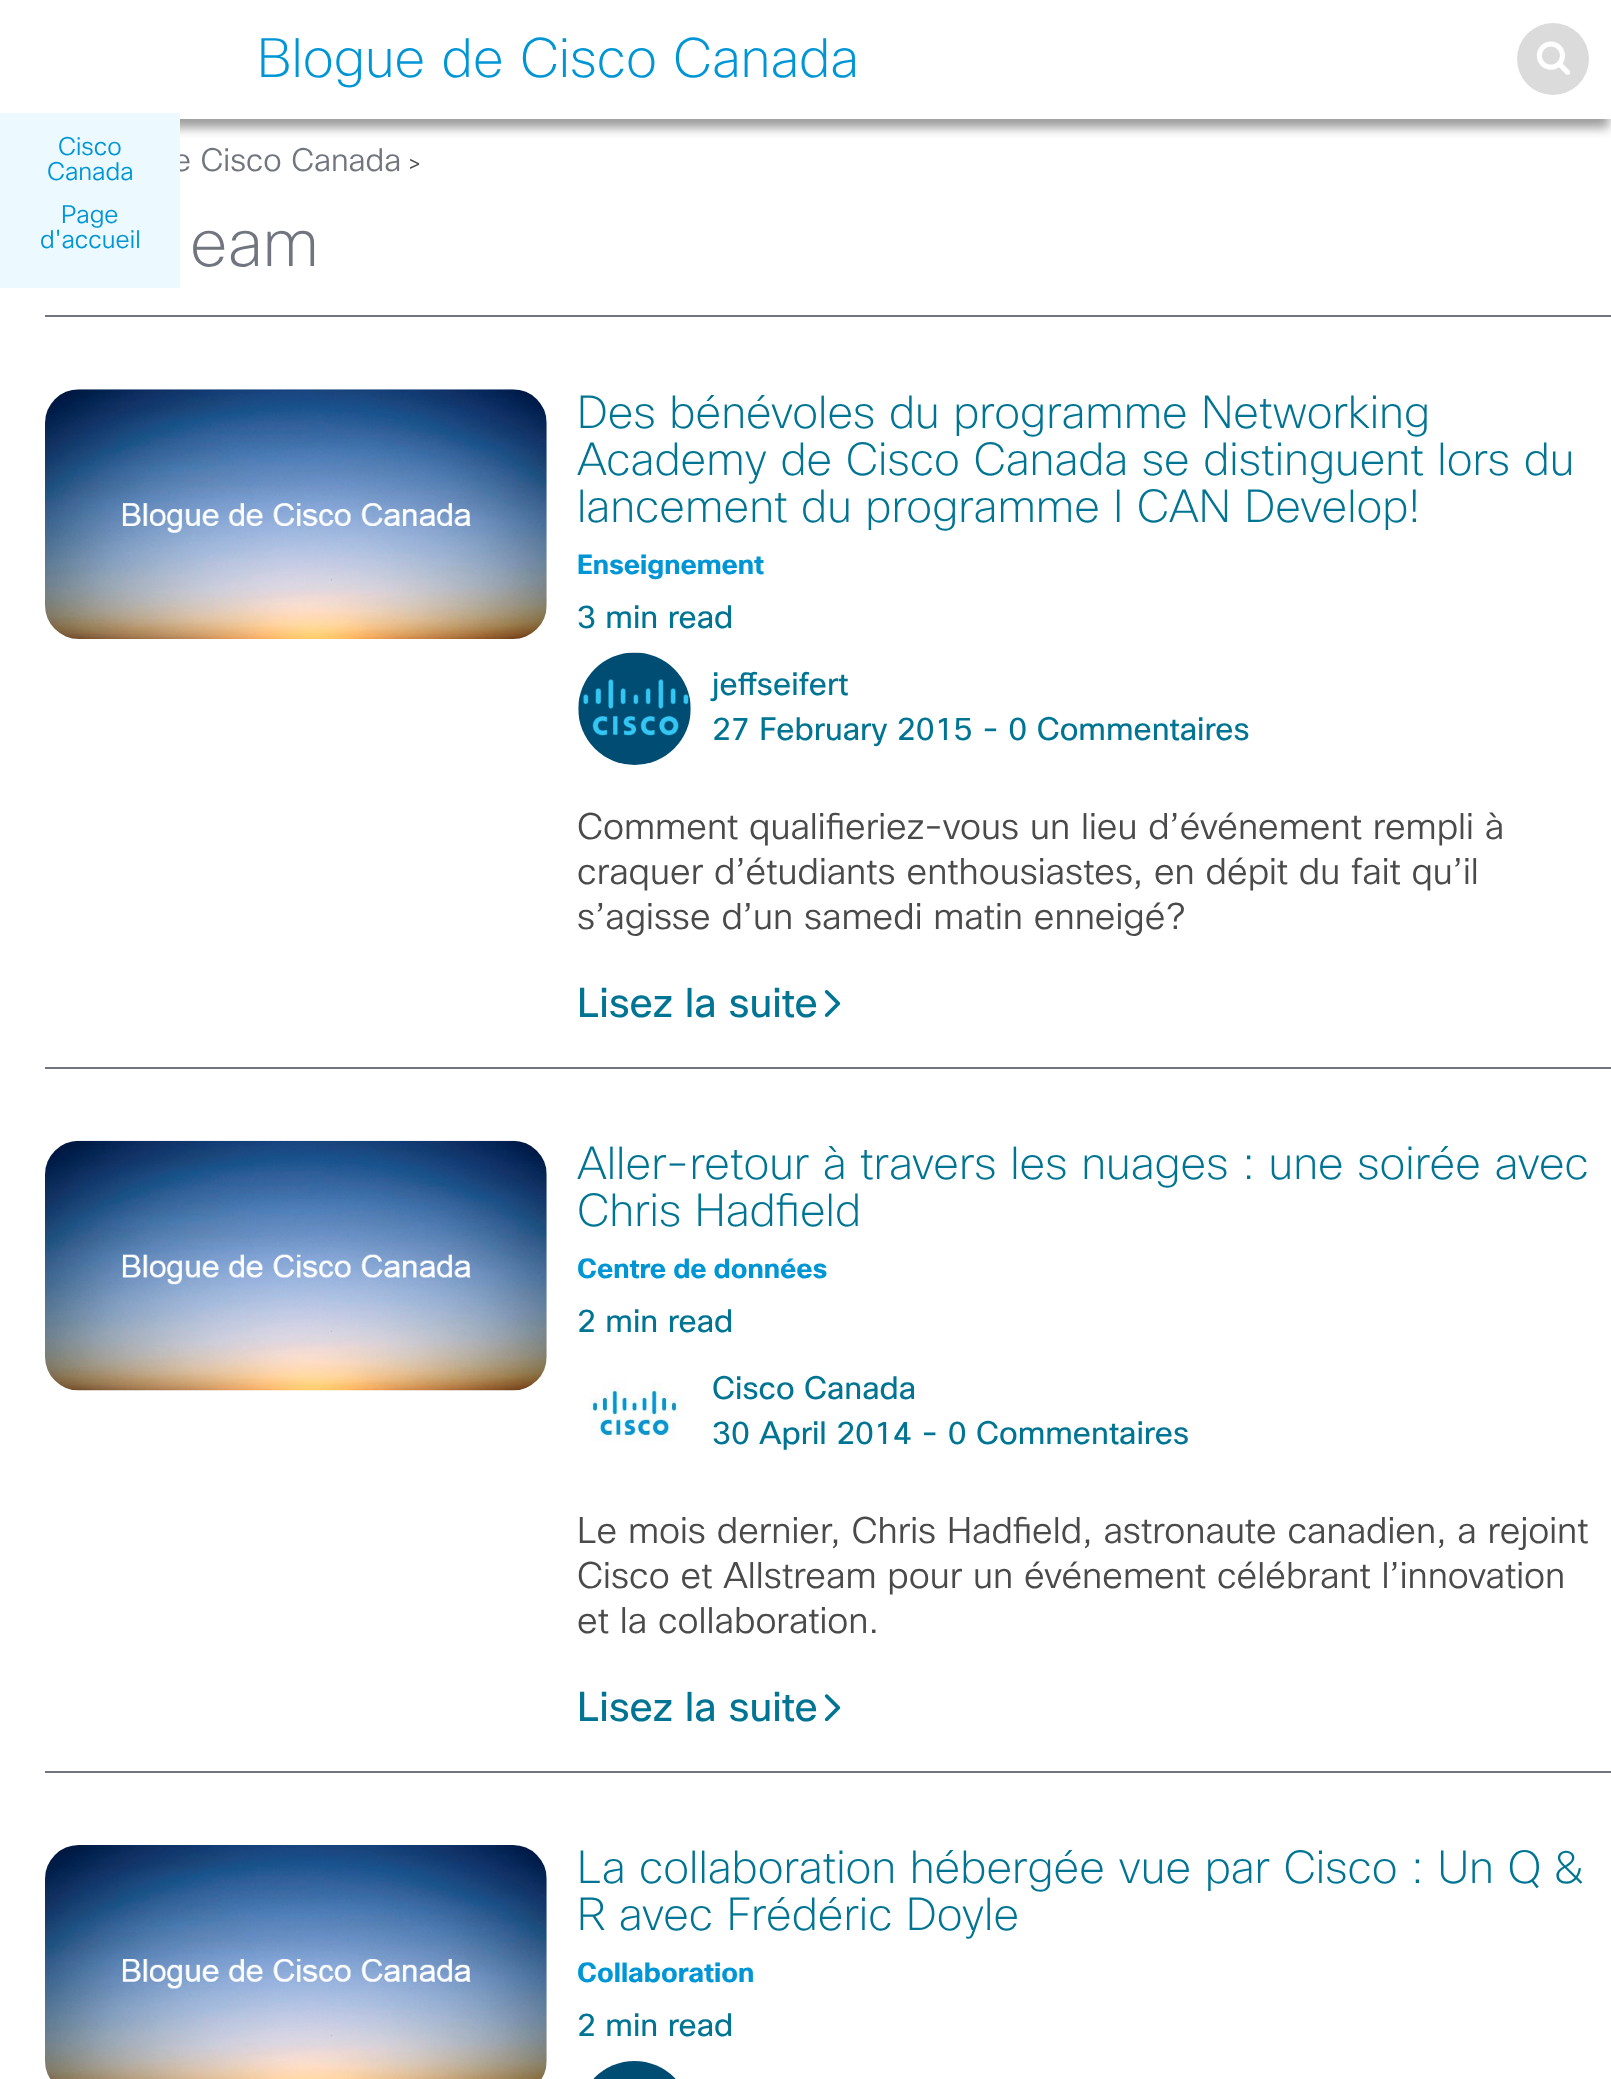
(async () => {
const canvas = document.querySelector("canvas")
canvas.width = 1611
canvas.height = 2079
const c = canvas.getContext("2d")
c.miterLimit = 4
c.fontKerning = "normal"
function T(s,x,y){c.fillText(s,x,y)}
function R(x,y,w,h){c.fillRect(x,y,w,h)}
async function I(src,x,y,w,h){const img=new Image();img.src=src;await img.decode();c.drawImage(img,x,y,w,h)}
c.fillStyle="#fff"
R(0,0,1611,2079)
c.save()
c.beginPath()
c.rect(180,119,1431,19)
c.clip()
c.fillStyle="#3232327a"
c.filter="blur(5.5px)"
c.beginPath()
c.rect(2,14,1607,114)
c.fill()
c.filter="none"
c.restore()
c.font="300 54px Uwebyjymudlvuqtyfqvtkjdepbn"
c.fillStyle="#0096d6"
T("Blogue de Cisco Canada",257,77)
c.fillStyle="#dbdbdb"
c.beginPath()
c.arc(1553,59,36,0,7)
c.fill()
await I("1.png",1536,41,35,34)
c.font="300 31.5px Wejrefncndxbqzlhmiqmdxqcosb"
c.fillStyle="#71757f"
T("e Cisco Canada",173,171)
c.fillStyle="#ecf9ff"
R(0,113,180,175)
c.font="300 24.75px Wejrefncndxbqzlhmiqmdxqcosb"
c.fillStyle="#0096d6"
T("Cisco",58,155)
T("Canada",47,180)
T("Page",61,223)
T("d'accueil",40,248)
c.font="300 22px Wejrefncndxbqzlhmiqmdxqcosb"
c.fillStyle="#4a4a4a"
T(">",408,171)
c.font="300 66px Uwebyjymudlvuqtyfqvtkjdepbn"
c.fillStyle="#71757f"
T("eam",190,266)
R(45,315,1566,2)
await I("2.png",45,389,502,250)
c.font="300 45px Uwebyjymudlvuqtyfqvtkjdepbn"
c.fillStyle="#007493"
T("Des bénévoles du programme Networking",577,428)
T("Academy de Cisco Canada se distinguent lors du",577,475)
T("lancement du programme I CAN Develop!",577,522)
c.font="bold 27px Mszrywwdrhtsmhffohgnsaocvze"
c.fillStyle="#0096d6"
T("Enseignement",577,574)
c.font="31.5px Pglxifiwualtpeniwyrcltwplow"
c.fillStyle="#007493"
T("3 min read",577,628)
await I("3.png",578,652,113,113)
T("jeffseifert",712,695)
T("27 February 2015 - 0 Commentaires",712,740)
c.font="300 36px Wejrefncndxbqzlhmiqmdxqcosb"
c.fillStyle="#4a4a4a"
T("Comment qualifieriez-vous un lieu d’événement rempli à",577,839)
T("craquer d’étudiants enthousiastes, en dépit du fait qu’il",577,884)
T("s’agisse d’un samedi matin enneigé?",577,929)
c.font="40.5px Pglxifiwualtpeniwyrcltwplow"
c.fillStyle="#007493"
T("Lisez la suite",577,1017)
await I("4.png",824,990,17,27)
c.fillStyle="#71757f"
R(45,1067,1566,2)
await I("5.png",45,1140,502,251)
c.font="300 45px Uwebyjymudlvuqtyfqvtkjdepbn"
c.fillStyle="#007493"
T("Aller-retour à travers les nuages : une soirée avec",577,1179)
T("Chris Hadfield",577,1226)
c.font="bold 27px Mszrywwdrhtsmhffohgnsaocvze"
c.fillStyle="#0096d6"
T("Centre de données",577,1278)
c.font="31.5px Pglxifiwualtpeniwyrcltwplow"
c.fillStyle="#007493"
T("2 min read",577,1332)
await I("6.png",590,1380,96,61)
T("Cisco Canada",712,1399)
T("30 April 2014 - 0 Commentaires",712,1444)
c.font="300 36px Wejrefncndxbqzlhmiqmdxqcosb"
c.fillStyle="#4a4a4a"
T("Le mois dernier, Chris Hadfield, astronaute canadien, a rejoint",577,1543)
T("Cisco et Allstream pour un événement célébrant l’innovation",577,1588)
T("et la collaboration.",577,1633)
c.font="40.5px Pglxifiwualtpeniwyrcltwplow"
c.fillStyle="#007493"
T("Lisez la suite",577,1721)
await I("7.png",824,1694,17,27)
c.fillStyle="#71757f"
R(45,1771,1566,2)
await I("8.png",45,1845,502,234)
c.font="300 45px Uwebyjymudlvuqtyfqvtkjdepbn"
c.fillStyle="#007493"
T("La collaboration hébergée vue par Cisco : Un Q &",577,1883)
T("R avec Frédéric Doyle",577,1930)
c.font="bold 27px Mszrywwdrhtsmhffohgnsaocvze"
c.fillStyle="#0096d6"
T("Collaboration",577,1982)
c.font="31.5px Pglxifiwualtpeniwyrcltwplow"
c.fillStyle="#007493"
T("2 min read",577,2036)
await I("9.png",593,2061,83,18)
})()
